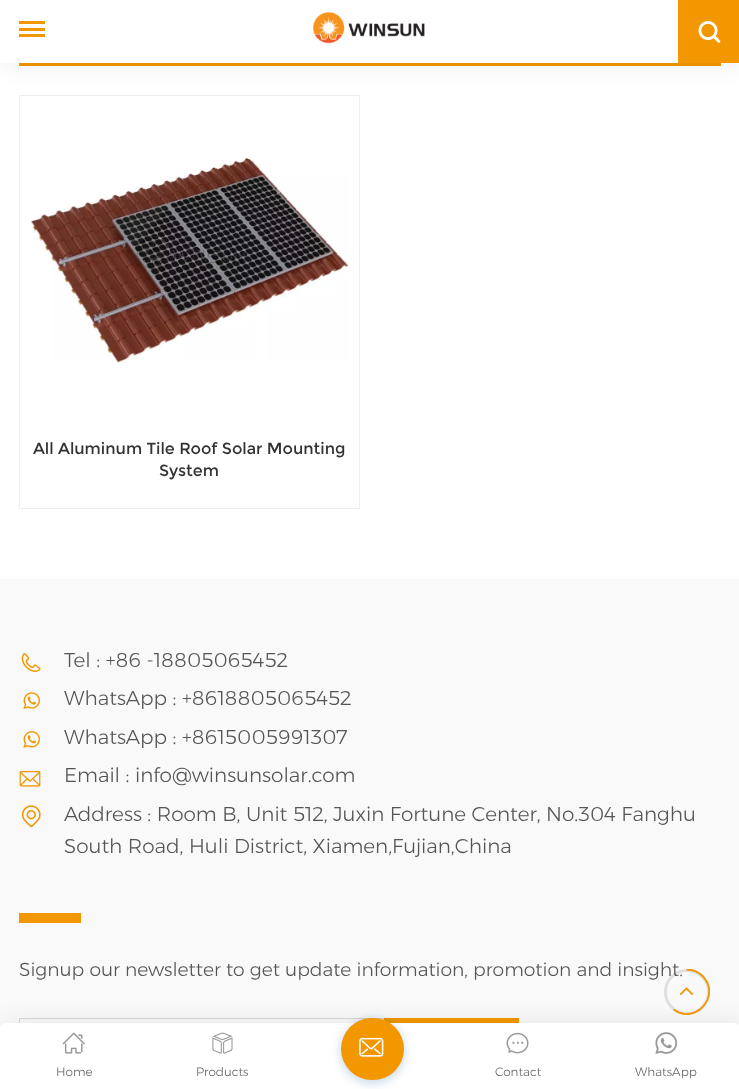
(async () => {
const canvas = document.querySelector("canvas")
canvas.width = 739
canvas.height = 1089
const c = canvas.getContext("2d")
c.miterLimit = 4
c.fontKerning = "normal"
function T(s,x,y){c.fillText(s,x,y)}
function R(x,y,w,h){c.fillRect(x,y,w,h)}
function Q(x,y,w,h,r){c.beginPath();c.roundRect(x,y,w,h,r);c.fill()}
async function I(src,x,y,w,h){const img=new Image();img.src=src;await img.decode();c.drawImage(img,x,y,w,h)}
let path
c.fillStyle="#fff"
R(0,0,739,1089)
c.fillStyle="#f39700"
R(19,63,702,3)
c.strokeStyle="#eee"
c.strokeRect(19.5,95.5,340,413)
c.fillStyle="#00000014"
c.filter="blur(12.5px)"
c.beginPath()
c.rect(3,0,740,63)
c.fill()
c.filter="none"
c.fillStyle="#fff"
R(0,0,678,63)
c.fillStyle="#f39700"
R(19,21,26,3)
R(19,28,26,3)
R(19,34,26,3)
await I("1.png",313,12,112,32)
R(678,0,61,63)
await I("2.png",698,21,23,22)
await I("3.png",31,157,318,206)
c.font="16px Montserrat"
c.fillStyle="#333"
T("All Aluminum Tile Roof Solar Mounting",33,454)
T("System",159,476)
c.fillStyle="#f9f9f9"
R(0,579,739,450)
await I("4.png",21,653,20,19)
c.font="300 20px Montserrat"
c.fillStyle="#555"
T("Tel : +86 -18805065452",64,667)
await I("5.png",23,692,17,18)
T("WhatsApp : +8618805065452",64,705)
await I("6.png",23,731,17,17)
T("WhatsApp : +8615005991307",64,744)
await I("7.png",19,770,22,17)
T("Email : info@winsunsolar.com",64,782)
await I("8.png",21,805,20,23)
T("Address : Room B, Unit 512, Juxin Fortune Center, No.304 Fanghu",64,821)
T("South Road, Huli District, Xiamen,Fujian,China",64,853)
c.fillStyle="#f39700"
R(19,913,62,10)
c.font="300 18.75px Montserrat"
c.fillStyle="#555"
T("Signup our newsletter to get update information, promotion and insight.",19,976)
c.strokeStyle="#d7d7d7"
c.strokeRect(19.5,1018.5,364,49)
c.fillStyle="#f39700"
R(384,1018,135,5)
c.fillStyle="#00000014"
c.filter="blur(12.5px)"
c.beginPath()
c.roundRect(3,1023,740,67,6)
c.fill()
c.filter="none"
c.beginPath()
c.arc(687,992,21.5,0,7)
c.strokeStyle="#0000001a"
c.lineWidth=3
c.stroke()
c.save()
c.beginPath()
c.rect(664,969,46,46)
c.clip()
path = new Path2D("M686.5 969.5c6 0 12 2.5 16 6.5c19.5 19.5-7.5 49.5-29 33.5")
c.strokeStyle="#f39700"
c.lineWidth=1.8
c.stroke(path)
c.restore()
await I("9.png",679,987,15,9)
c.fillStyle="#fff"
path = new Path2D("M6 1023h728c3.5 0 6 2.5 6 6v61h-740v-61c0-3.5 2.5-6 6-6z")
c.fill(path)
c.fillStyle="#004e9833"
c.filter="blur(5px)"
c.beginPath()
c.roundRect(340,1019,65,65,32.5)
c.fill()
c.filter="none"
c.fillStyle="#f39700"
Q(341,1018,63,62,31)
await I("10.png",359,1037,25,20)
await I("11.png",62,1032,23,22)
c.font="300 12px Montserrat"
c.fillStyle="#666"
T("Home",56,1076)
await I("12.png",212,1032,21,22)
T("Products",196,1076)
await I("13.png",506,1032,23,22)
T("Contact",495,1076)
await I("14.png",655,1032,23,22)
T("WhatsApp",635,1076)
})()
